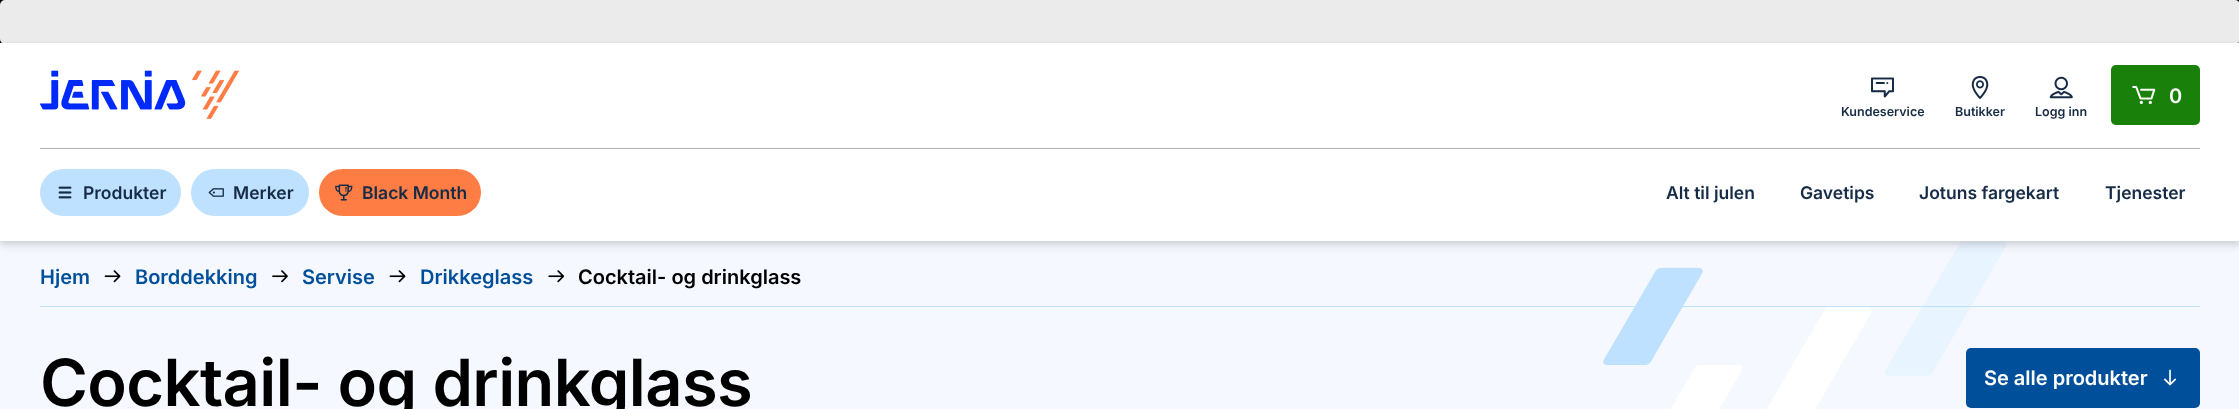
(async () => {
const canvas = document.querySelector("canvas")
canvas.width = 2239
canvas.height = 409
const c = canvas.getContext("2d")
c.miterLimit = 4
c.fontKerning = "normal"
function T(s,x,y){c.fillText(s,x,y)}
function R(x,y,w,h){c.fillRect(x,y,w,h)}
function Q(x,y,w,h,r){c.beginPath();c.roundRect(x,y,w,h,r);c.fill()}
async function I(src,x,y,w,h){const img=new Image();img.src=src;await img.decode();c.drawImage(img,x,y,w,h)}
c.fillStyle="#000"
R(0,0,2239,409)
c.fillStyle="#ebebeb"
Q(0,0,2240,44,5)
c.fillStyle="#f5f9ff"
R(0,241,2239,168)
await I("9.png",1603,241,404,168)
c.fillStyle="#0000001a"
c.filter="blur(4px)"
c.beginPath()
c.rect(0,48,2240,198)
c.fill()
c.filter="none"
c.fillStyle="#0000000f"
c.filter="blur(2.5px)"
c.beginPath()
c.rect(0,45,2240,199)
c.fill()
c.filter="none"
c.fillStyle="#fff"
R(0,43,2239,198)
await I("1.png",40,70,199,49)
c.fillStyle="#198009"
Q(2111,65,89,60,5)
await I("2.png",2132,86,24,19)
c.font="600 20px Inter"
c.fillStyle="#fff"
T("0",2169,103)
await I("3.png",1871,77,23,21)
c.font="600 12.5px Inter"
c.fillStyle="#162b45"
T("Kundeservice",1841,116)
await I("4.png",1971,76,18,23)
T("Butikker",1955,116)
await I("5.png",2049,76,24,23)
T("Logg inn",2035,116)
c.fillStyle="#b3b3b3"
R(40,148,2160,1)
c.fillStyle="#bee1ff"
Q(40,169,141,47,23.5)
await I("6.png",58,186,14,13)
c.font="600 17.5px Inter"
c.fillStyle="#162b45"
T("Produkter",83,199)
c.fillStyle="#bee1ff"
Q(191,169,118,47,23.5)
await I("7.png",208,188,16,9)
c.fillStyle="#162b45"
T("Merker",233,199)
c.fillStyle="#fd7d45"
Q(319,169,162,47,23.5)
await I("8.png",335,184,18,17)
c.fillStyle="#162b45"
T("Black Month",362,199)
T("Alt til julen",1666,199)
T("Gavetips",1800,199)
T("Jotuns fargekart",1919,199)
T("Tjenester",2105,199)
c.fillStyle="#bee1ff"
R(40,306,2160,1)
c.font="600 20px Inter"
c.fillStyle="#004f9a"
T("Hjem",40,284)
await I("10.png",104,270,17,13)
T("Borddekking",135,284)
await I("11.png",272,270,16,13)
T("Servise",302,284)
await I("10.png",389,270,17,13)
T("Drikkeglass",420,284)
await I("12.png",548,270,17,13)
c.fillStyle="#000"
T("Cocktail- og drinkglass",578,284)
c.letterSpacing="-0.6px"
c.font="600 65px Inter"
T("Cocktail- og drinkglass",40,406)
c.fillStyle="#004f9a"
Q(1966,348,234,60,5)
c.letterSpacing="0px"
c.font="600 20px Inter"
c.fillStyle="#fff"
T("Se alle produkter",1984,385)
await I("13.png",2164,369,12,17)
})()
